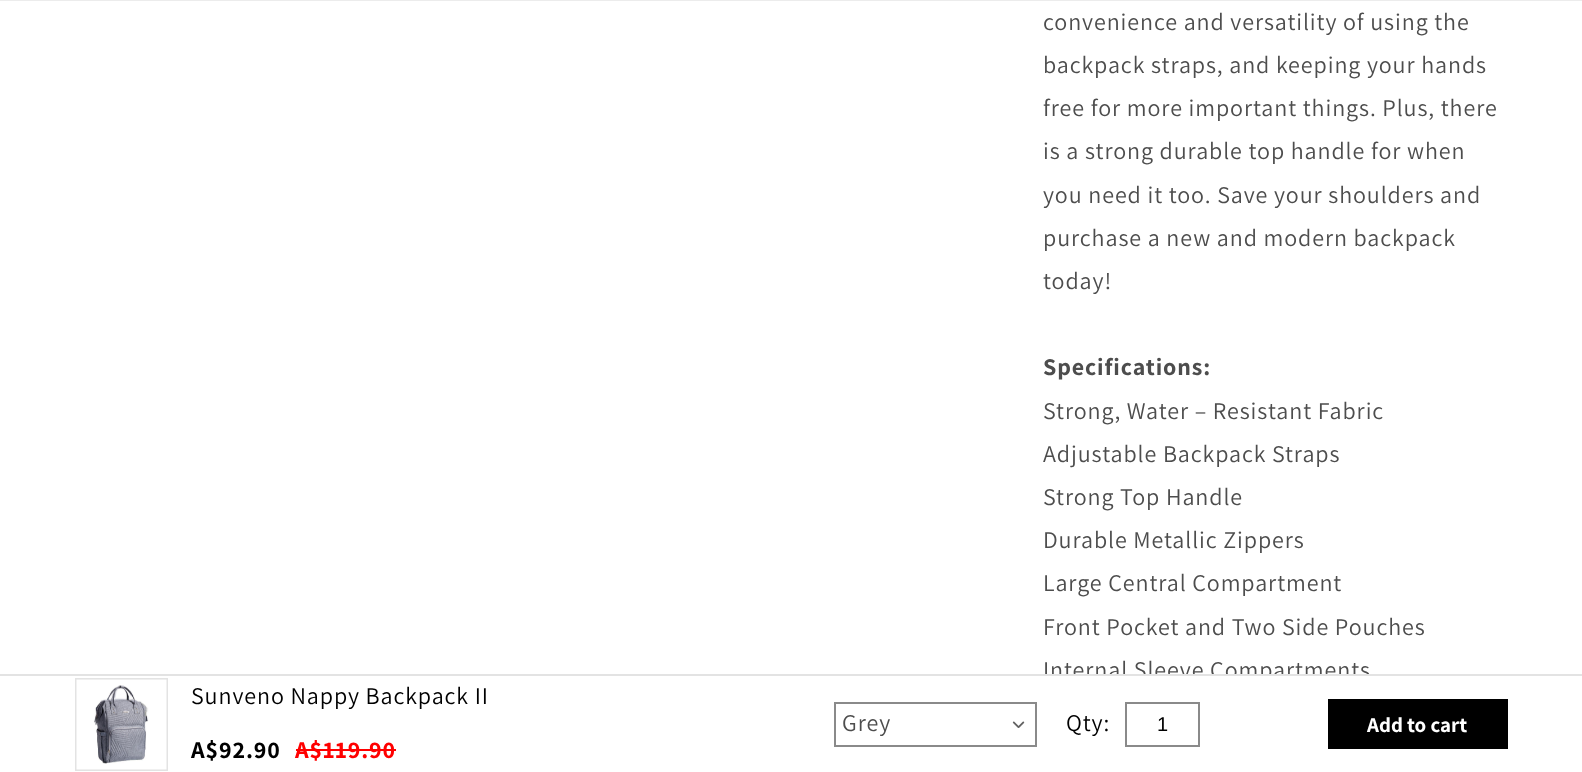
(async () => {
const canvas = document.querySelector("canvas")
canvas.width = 1582
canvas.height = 772
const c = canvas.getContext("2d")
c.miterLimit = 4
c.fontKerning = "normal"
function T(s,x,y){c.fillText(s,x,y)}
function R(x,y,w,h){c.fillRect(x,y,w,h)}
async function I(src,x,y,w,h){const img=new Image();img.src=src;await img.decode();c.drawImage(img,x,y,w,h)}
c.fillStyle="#fff"
R(0,0,1582,772)
c.fillStyle="#ececec"
R(0,0,1582,1)
c.letterSpacing="0.9px"
c.font="24px Assistant"
c.fillStyle="#4d4d4d"
T("convenience and versatility of using the",1043,30)
T("backpack straps, and keeping your hands",1043,73)
T("free for more important things. Plus, there",1043,116)
T("is a strong durable top handle for when",1043,159)
T("you need it too. Save your shoulders and",1043,203)
T("purchase a new and modern backpack",1043,246)
T("today!",1043,289)
c.font="bold 24px Assistant"
T("Specifications:",1043,375)
c.font="24px Assistant"
T("Strong, Water – Resistant Fabric",1043,419)
T("Adjustable Backpack Straps",1043,462)
T("Strong Top Handle",1043,505)
T("Durable Metallic Zippers",1043,548)
T("Large Central Compartment",1043,591)
T("Front Pocket and Two Side Pouches",1043,635)
T("Internal Sleeve Compartments",1043,678)
c.fillStyle="#fff"
R(1044,676,325,7)
c.fillStyle="#e3e3e3"
R(0,674,1582,2)
c.strokeStyle="#e3e3e3"
c.lineWidth=2
c.strokeRect(76,679,91,91)
await I("1.png",76,679,91,91)
c.fillStyle="#000"
T("Sunveno Nappy Backpack II",191,704)
c.font="bold 24px Assistant"
T("A$92.90",191,758)
c.fillStyle="#f00"
T("A$119.90",295,758)
R(296,749,100,2)
c.strokeStyle="#8a8a8a"
c.strokeRect(835,703,201,43)
c.font="24px Assistant"
c.fillStyle="#4d4d4d"
T("Grey",842,731)
await I("2.png",1012,721,13,7)
c.fillStyle="#000"
T("Qty:",1066,731)
c.strokeRect(1126,703,73,43)
c.letterSpacing="0px"
c.font="20px Liberation Sans"
T("1",1157,731)
R(1328,699,180,50)
c.font="bold 21px Assistant"
c.fillStyle="#fff"
T("Add to cart",1367,732)
})()
